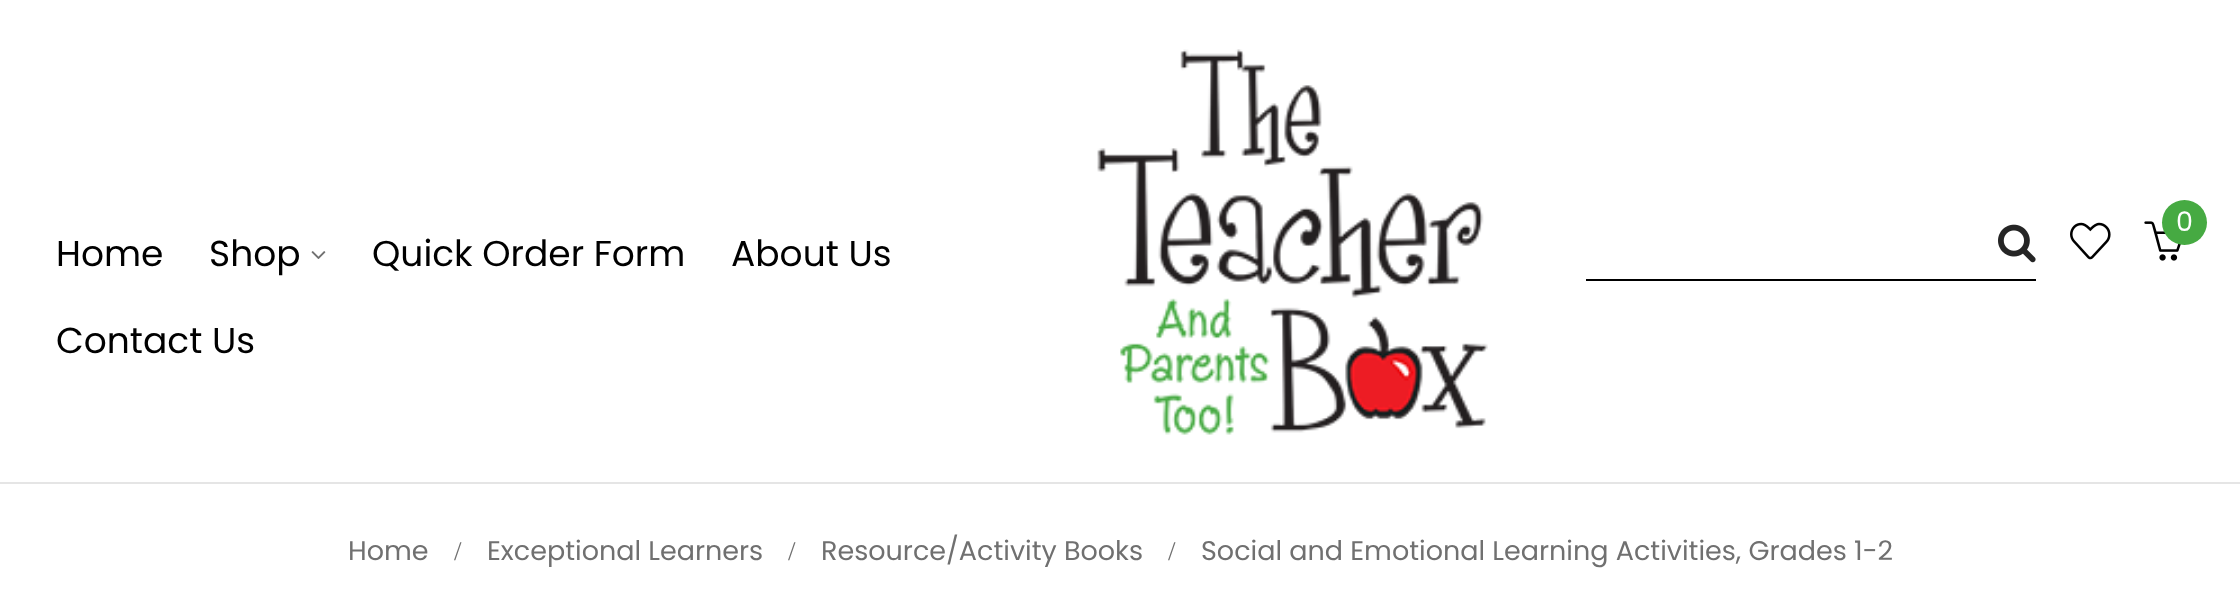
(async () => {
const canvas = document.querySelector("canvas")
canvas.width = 2240
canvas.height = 604
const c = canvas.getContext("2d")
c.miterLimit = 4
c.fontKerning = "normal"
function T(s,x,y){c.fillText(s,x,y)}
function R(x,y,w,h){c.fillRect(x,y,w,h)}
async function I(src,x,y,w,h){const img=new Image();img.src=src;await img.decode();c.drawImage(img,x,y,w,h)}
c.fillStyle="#fff"
R(0,0,2240,604)
await I("1.png",1097,49,391,386)
await I("2.png",1998,224,38,39)
c.fillStyle="#000"
R(1586,279,450,2)
await I("3.png",2070,222,41,38)
await I("4.png",2144,221,37,40)
c.fillStyle="#46aa42"
c.beginPath()
c.arc(2184.5,222.5,22.5,0,7)
c.fill()
c.font="27px Poppins"
c.fillStyle="#fff"
T("0",2176,231)
c.font="36px Poppins"
c.fillStyle="#000"
T("Home",56,266)
T("Shop",209,266)
await I("5.png",311,251,15,8)
T("Quick Order Form",372,266)
T("About Us",731,266)
T("Contact Us",56,353)
c.fillStyle="#e5e5e5"
R(0,482,2240,2)
c.font="27px Poppins"
c.fillStyle="#707070"
T("Home",348,560)
c.font="27px Liberation Serif"
T("/",454,560)
c.font="27px Poppins"
T("Exceptional Learners",487,560)
c.font="27px Liberation Serif"
T("/",788,560)
c.font="27px Poppins"
T("Resource/Activity Books",821,560)
c.font="27px Liberation Serif"
T("/",1168,560)
c.font="27px Poppins"
T("Social and Emotional Learning Activities, Grades 1-2",1201,560)
})()
